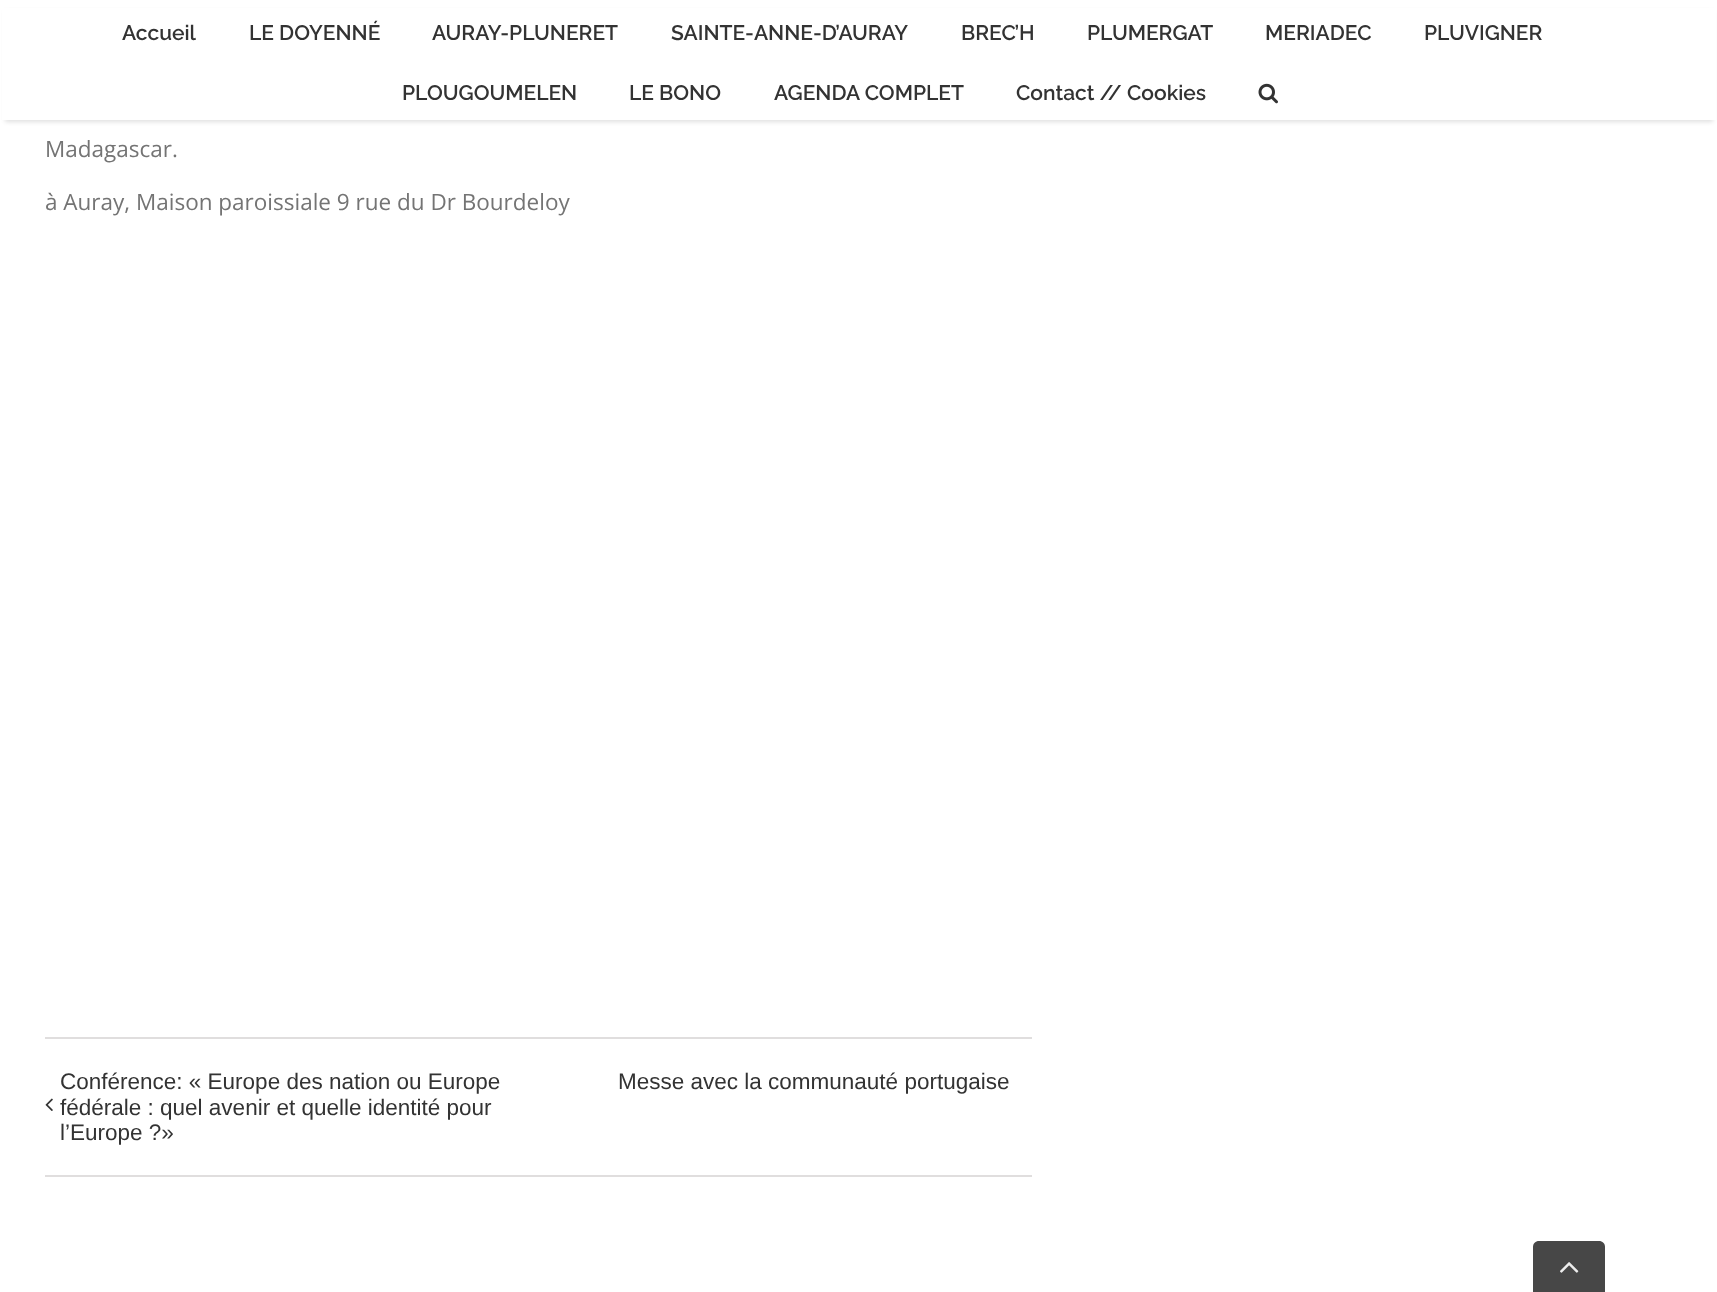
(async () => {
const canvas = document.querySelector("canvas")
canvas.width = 1717
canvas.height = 1292
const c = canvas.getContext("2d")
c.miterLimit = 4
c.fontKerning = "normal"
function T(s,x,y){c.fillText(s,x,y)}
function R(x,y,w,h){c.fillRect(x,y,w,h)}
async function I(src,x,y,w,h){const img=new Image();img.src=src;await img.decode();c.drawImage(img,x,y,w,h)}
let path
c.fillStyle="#fff"
R(0,0,1717,1292)
c.fillStyle="#0000001f"
c.filter="blur(2px)"
c.beginPath()
c.rect(5,11,1708,111)
c.fill()
c.filter="none"
c.fillStyle="#fff"
R(2,8,1714,112)
c.font="600 21px Raleway"
c.fillStyle="#333"
T("Accueil",122,40)
T("LE DOYENNÉ",249,40)
T("AURAY-PLUNERET",432,40)
T("SAINTE-ANNE-D’AURAY",671,40)
T("BREC’H",961,40)
T("PLUMERGAT",1087,40)
T("MERIADEC",1265,40)
T("PLUVIGNER",1424,40)
T("PLOUGOUMELEN",402,100)
T("LE BONO",629,100)
T("AGENDA COMPLET",774,100)
T("Contact // Cookies",1016,100)
await I("1.png",1258,83,20,21)
c.font="22.5px Open Sans"
c.fillStyle="#747474"
T("Madagascar.",45,157)
T("à Auray, Maison paroissiale 9 rue du Dr Bourdeloy",45,210)
c.fillStyle="#e0dede"
R(45,1037,987,2)
R(45,1175,987,2)
c.font="22.5px Liberation Sans"
c.fillStyle="#333"
T("Conférence: « Europe des nation ou Europe",60,1089)
await I("2.png",45,1098,8,13)
T("fédérale : quel avenir et quelle identité pour",60,1115)
T("l’Europe ?»",60,1140)
T("Messe avec la communauté portugaise",618,1089)
c.fillStyle="#474747"
path = new Path2D("M1539 1241h60c3.5 0 6 2.5 6 6v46h-72v-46c0-3.5 2.5-6 6-6z")
c.fill(path)
await I("3.png",1560,1262,19,11)
})()
